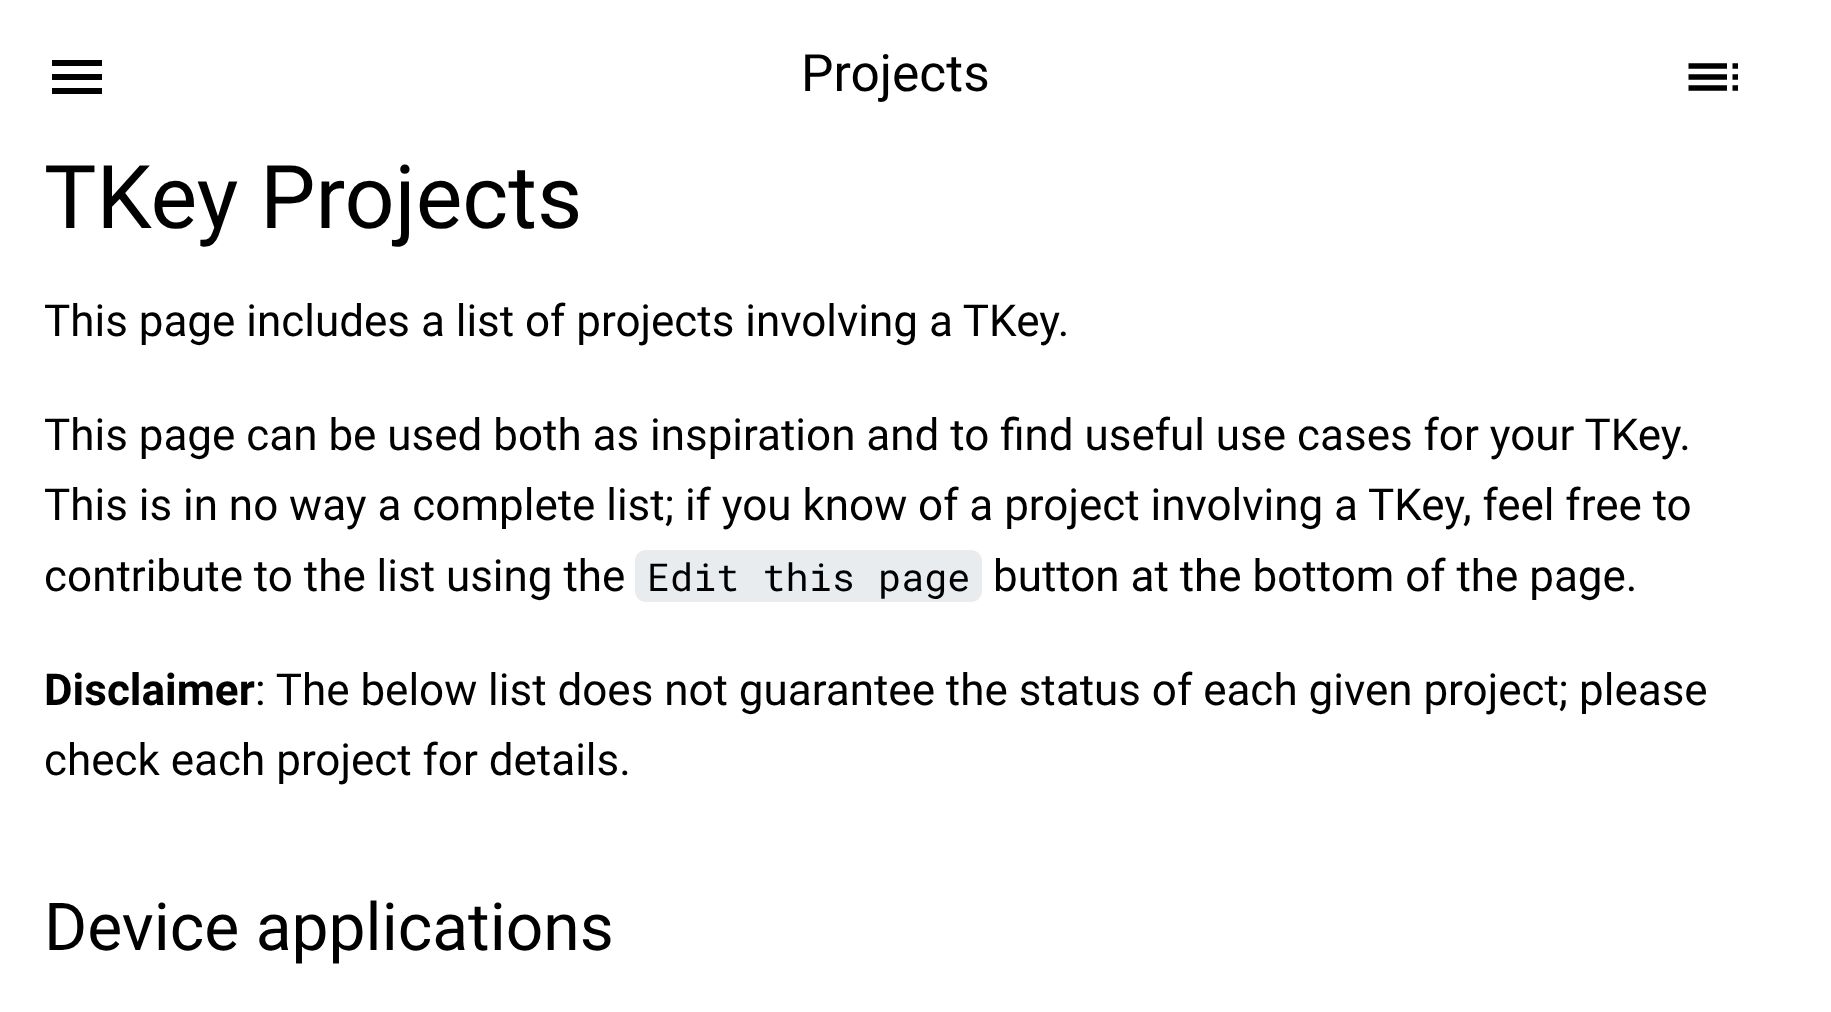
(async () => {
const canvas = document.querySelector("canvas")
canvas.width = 1831
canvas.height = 1012
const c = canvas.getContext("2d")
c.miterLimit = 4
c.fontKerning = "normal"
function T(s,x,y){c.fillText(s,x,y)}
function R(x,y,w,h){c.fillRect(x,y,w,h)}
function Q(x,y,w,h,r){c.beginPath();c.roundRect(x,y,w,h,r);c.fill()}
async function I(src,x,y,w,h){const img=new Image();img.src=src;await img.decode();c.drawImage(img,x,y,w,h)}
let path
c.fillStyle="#fff"
R(0,0,1831,1012)
c.fillStyle="#000"
path = new Path2D("M52 94h50v-6h-50zm0-14h50v-6h-50zm0-20v6h50v-6z")
c.fill(path)
c.font="51.5px Roboto"
T("Projects",801,91)
await I("1.png",1688,63,50,28)
c.font="88px Roboto"
T("TKey Projects",44,228)
c.font="44px Roboto"
T("This page includes a list of projects involving a TKey.",44,336)
T("This page can be used both as inspiration and to find useful use cases for your TKey.",44,450)
T("This is in no way a complete list; if you know of a project involving a TKey, feel free to",44,520)
T("contribute to the list using the",44,591)
c.fillStyle="#e9ecef"
Q(635,550,347,52,11)
c.font="38.5px Roboto Mono"
c.fillStyle="#000"
T("Edit this page",647,591)
c.font="44px Roboto"
T("button at the bottom of the page.",993,591)
c.font="bold 44px Roboto"
T("Disclaimer",44,705)
c.font="44px Roboto"
T(": The below list does not guarantee the status of each given project; please",255,705)
T("check each project for details.",44,775)
c.font="66px Roboto"
T("Device applications",44,950)
})()
